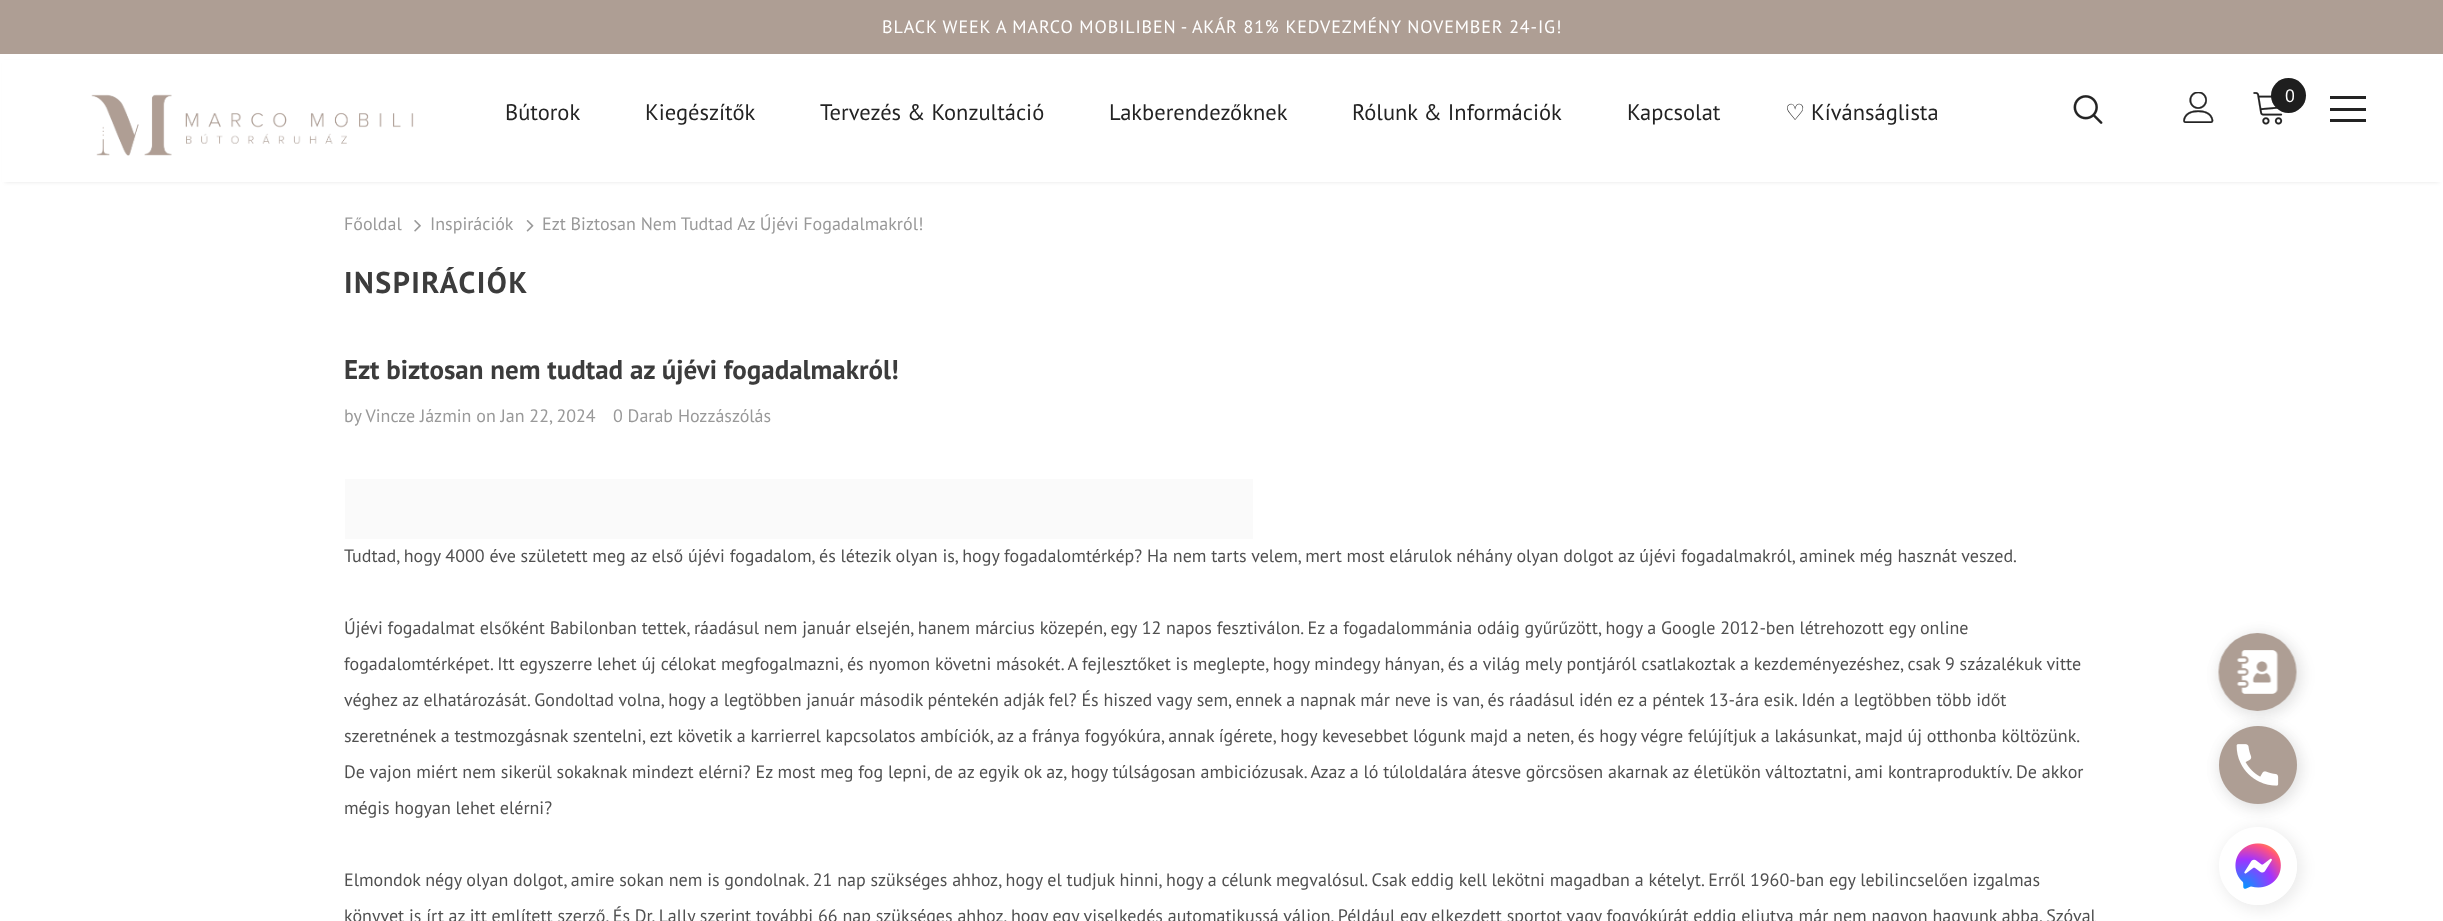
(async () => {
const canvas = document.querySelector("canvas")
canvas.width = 2443
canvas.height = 921
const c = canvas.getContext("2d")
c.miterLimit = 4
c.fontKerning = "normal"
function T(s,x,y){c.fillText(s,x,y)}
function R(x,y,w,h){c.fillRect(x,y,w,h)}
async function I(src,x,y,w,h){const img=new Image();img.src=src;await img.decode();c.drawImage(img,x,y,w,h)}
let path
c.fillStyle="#fff"
R(0,0,2443,921)
c.fillStyle="#ae9e94"
R(0,0,2443,54)
c.letterSpacing="0.9px"
c.font="18px PT Sans"
c.fillStyle="#fff"
T("BLACK WEEK A MARCO MOBILIBEN - AKÁR 81% KEDVEZMÉNY NOVEMBER 24-IG!",882,33)
c.fillStyle="#0000001a"
c.filter="blur(2px)"
c.beginPath()
c.rect(5,63,2434,119)
c.fill()
c.filter="none"
c.fillStyle="#fff"
R(2,60,2440,122)
await I("1.png",91,94,323,62)
c.letterSpacing="0px"
c.font="22.5px PT Sans"
c.fillStyle="#232323"
T("Bútorok",505,120)
T("Kiegészítők",645,120)
T("Tervezés & Konzultáció",820,120)
T("Lakberendezőknek",1109,120)
T("Rólunk & Információk",1352,120)
T("Kapcsolat",1627,120)
c.font="22.5px DejaVu Sans"
T("♡",1785,120)
c.font="22.5px PT Sans"
T("Kívánságlista",1811,120)
await I("2.png",2073,95,30,29)
await I("3.png",2183,92,31,31)
await I("4.png",2253,92,30,33)
c.fillStyle="#1e1e1e"
c.beginPath()
c.arc(2288.5,95.5,17.5,0,7)
c.fill()
c.font="18px PT Sans"
c.fillStyle="#fff"
T("0",2285,102)
c.fillStyle="#232323"
R(2330,96,36,3)
R(2330,108,36,3)
R(2330,119,36,3)
c.fillStyle="#999"
T("Főoldal",344,230)
await I("5.png",414,220,7,12)
T("Inspirációk",430,230)
await I("6.png",526,220,8,12)
T("Ezt Biztosan Nem Tudtad Az Újévi Fogadalmakról!",542,230)
c.letterSpacing="1.5px"
c.font="bold 30px PT Sans"
c.fillStyle="#3c3c3c"
T("INSPIRÁCIÓK",344,293)
c.letterSpacing="0px"
c.font="bold 27px PT Sans"
T("Ezt biztosan nem tudtad az újévi fogadalmakról!",344,379)
c.font="18px PT Sans"
c.fillStyle="#999"
T("by Vincze Jázmin on Jan 22, 2024",344,422)
T("0 Darab Hozzászólás",613,422)
c.fillStyle="#fafafa"
R(345,479,908,60)
c.fillStyle="#505050"
T("Tudtad, hogy 4000 éve született meg az első újévi fogadalom, és létezik olyan is, hogy fogadalomtérkép? Ha nem tarts velem, mert most elárulok néhány olyan dolgot az újévi fogadalmakról, aminek még hasznát veszed.",344,562)
T("Újévi fogadalmat elsőként Babilonban tettek, ráadásul nem január elsején, hanem március közepén, egy 12 napos fesztiválon. Ez a fogadalommánia odáig gyűrűzött, hogy a Google 2012-ben létrehozott egy online",344,634)
T("fogadalomtérképet. Itt egyszerre lehet új célokat megfogalmazni, és nyomon követni másokét. A fejlesztőket is meglepte, hogy mindegy hányan, és a világ mely pontjáról csatlakoztak a kezdeményezéshez, csak 9 százalékuk vitte",344,670)
T("véghez az elhatározását. Gondoltad volna, hogy a legtöbben január második péntekén adják fel? És hiszed vagy sem, ennek a napnak már neve is van, és ráadásul idén ez a péntek 13-ára esik. Idén a legtöbben több időt",344,706)
T("szeretnének a testmozgásnak szentelni, ezt követik a karrierrel kapcsolatos ambíciók, az a fránya fogyókúra, annak ígérete, hogy kevesebbet lógunk majd a neten, és hogy végre felújítjuk a lakásunkat, majd új otthonba költözünk.",344,742)
T("De vajon miért nem sikerül sokaknak mindezt elérni? Ez most meg fog lepni, de az egyik ok az, hogy túlságosan ambiciózusak. Azaz a ló túloldalára átesve görcsösen akarnak az életükön változtatni, ami kontraproduktív. De akkor",344,778)
T("mégis hogyan lehet elérni?",344,814)
T("Elmondok négy olyan dolgot, amire sokan nem is gondolnak. 21 nap szükséges ahhoz, hogy el tudjuk hinni, hogy a célunk megvalósul. Csak eddig kell lekötni magadban a kételyt. Erről 1960-ban egy lebilincselően izgalmas",344,886)
T("könyvet is írt az itt említett szerző. És Dr. Lally szerint további 66 nap szükséges ahhoz, hogy egy viselkedés automatikussá váljon. Például egy elkezdett sportot vagy fogyókúrát eddig eljutva már nem nagyon hagyunk abba. Szóval",344,922)
c.fillStyle="#00000012"
c.filter="blur(7px)"
c.beginPath()
c.roundRect(2219,726,84,84,42)
c.fill()
c.filter="none"
c.fillStyle="#0000000d"
c.filter="blur(7.5px)"
c.beginPath()
c.roundRect(2219,729,78,78,39)
c.fill()
c.filter="none"
await I("8.png",2219,726,78,78)
c.fillStyle="#00000012"
c.filter="blur(7px)"
c.beginPath()
c.roundRect(2219,633,84,84,42)
c.fill()
c.filter="none"
c.fillStyle="#0000000d"
c.filter="blur(7.5px)"
c.beginPath()
c.roundRect(2219,636,78,78,39)
c.fill()
c.filter="none"
await I("7.png",2218,633,79,78)
c.save()
path = new Path2D("M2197 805h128v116h-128zm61 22c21.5 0 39 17.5 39 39c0 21.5-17.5 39-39 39c-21.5 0-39-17.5-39-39c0-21.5 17.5-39 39-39z")
c.clip(path,"evenodd")
c.fillStyle="#00000012"
c.filter="blur(7px)"
c.beginPath()
c.roundRect(2219,827,84,84,42)
c.fill()
c.filter="none"
c.restore()
await I("9.png",2228,839,69,66)
})()
